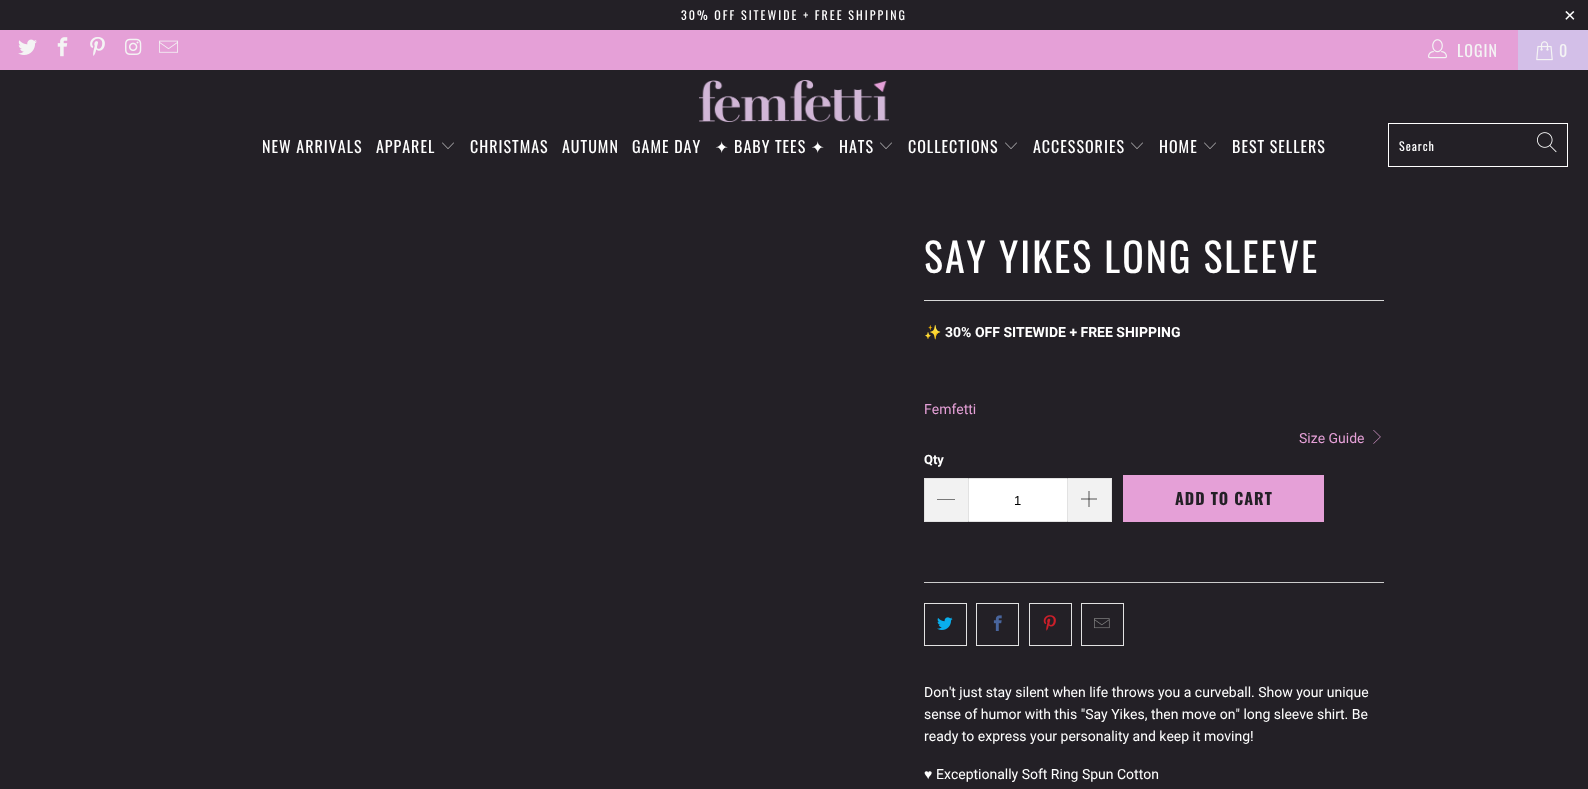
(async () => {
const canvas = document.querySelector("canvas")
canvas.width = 1588
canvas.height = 789
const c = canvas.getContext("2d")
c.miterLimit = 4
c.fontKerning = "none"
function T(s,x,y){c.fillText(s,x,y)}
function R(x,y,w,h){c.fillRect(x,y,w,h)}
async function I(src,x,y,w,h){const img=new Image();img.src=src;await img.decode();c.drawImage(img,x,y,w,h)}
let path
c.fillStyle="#232026"
R(0,0,1588,789)
c.letterSpacing="2px"
c.font="12px Oswald"
c.fillStyle="#fff"
T("30% OFF SITEWIDE + FREE SHIPPING",681,20)
c.font="20px Liberation Sans"
T("×",1564,22)
c.fillStyle="#e5a0d7"
R(0,30,1518,40)
await I("1.png",18,39,19,16)
await I("2.png",57,37,11,20)
await I("3.png",90,37,15,19)
await I("4.png",125,38,17,17)
await I("5.png",159,40,19,13)
await I("6.png",1428,39,19,20)
c.letterSpacing="1px"
c.font="16px Oswald"
c.fillStyle="#f4f4f4"
T("LOGIN",1457,57)
c.fillStyle="#d3bfe8"
R(1518,30,70,40)
await I("7.png",1536,41,17,20)
c.fillStyle="#f4f4f4"
T("0",1559,57)
await I("8.png",699,80,190,42)
c.fillStyle="#fff"
T("NEW ARRIVALS",262,153)
T("APPAREL",376,153)
await I("9.png",442,142,12,7)
T("CHRISTMAS",470,153)
T("AUTUMN",562,153)
T("GAME DAY",632,153)
c.font="16px DejaVu Sans"
T("✦",715,153)
c.font="16px Oswald"
T("BABY TEES",734,153)
c.font="16px DejaVu Sans"
T("✦",811,153)
c.font="16px Oswald"
T("HATS",839,153)
await I("9.png",880,142,12,7)
T("COLLECTIONS",908,153)
await I("9.png",1005,142,12,7)
T("ACCESSORIES",1033,153)
await I("9.png",1131,142,12,7)
T("HOME",1159,153)
await I("9.png",1204,142,12,7)
T("BEST SELLERS",1232,153)
c.strokeStyle="#fff"
c.strokeRect(1388.5,123.5,179,43)
c.font="12px Oswald"
T("Search",1399,151)
await I("10.png",1537,132,20,21)
c.letterSpacing="2px"
c.font="40px Oswald"
T("SAY YIKES LONG SLEEVE",924,273)
c.fillStyle="#d7d7d7"
R(924,300,460,1)
c.letterSpacing="0px"
c.font="bold 14px Noto Color Emoji"
c.fillStyle="#fff"
T("✨",924,337)
c.font="bold 14px Roboto"
T("30% OFF SITEWIDE + FREE SHIPPING",945,337)
c.font="14px Roboto"
c.fillStyle="#e5a0d7"
T("Femfetti",924,414)
T("Size Guide",1299,443)
await I("11.png",1373,430,8,14)
c.font="bold 13px Roboto"
c.fillStyle="#fff"
T("Qty",924,464)
c.fillStyle="#f2f2f2"
R(925,479,43,42)
c.fillStyle="#e2e2e2"
R(924,478,44,1)
R(924,521,44,1)
R(924,478,1,44)
c.fillStyle="#000"
path = new Path2D("M937 499h18v.5h-18z")
c.fill(path)
c.fillStyle="#fff"
c.beginPath()
c.rect(968.5,478.5,99,43)
c.fill()
c.strokeStyle="#e2e2e2"
c.stroke()
c.font="13px Liberation Sans"
c.fillStyle="#000"
T("1",1014,505)
c.fillStyle="#f2f2f2"
R(1068,479,43,42)
c.fillStyle="#e2e2e2"
R(1068,478,44,1)
R(1111,478,1,44)
R(1068,521,44,1)
await I("12.png",1081,491,16,16)
c.fillStyle="#e5a0d7"
R(1123,475,201,47)
c.letterSpacing="1px"
c.font="bold 16px Oswald"
c.fillStyle="#232026"
T("ADD TO CART",1175,505)
c.fillStyle="#ccc"
R(924,582,460,1)
c.strokeRect(924.5,603.5,42,42)
await I("13.png",937,617,16,13)
c.strokeRect(976.5,603.5,42,42)
await I("14.png",993,615,9,16)
c.strokeRect(1029.5,603.5,42,42)
await I("15.png",1043,615,13,16)
c.strokeRect(1081.5,603.5,42,42)
await I("16.png",1094,618,16,11)
c.letterSpacing="0px"
c.font="14px Roboto"
c.fillStyle="#fff"
T("Don't just stay silent when life throws you a curveball. Show your unique",924,697)
T("sense of humor with this \"Say Yikes, then move on\" long sleeve shirt. Be",924,719)
T("ready to express your personality and keep it moving!",924,741)
c.font="14px Liberation Sans"
T("♥",924,779)
c.font="14px Roboto"
T("Exceptionally Soft Ring Spun Cotton",936,779)
})()
